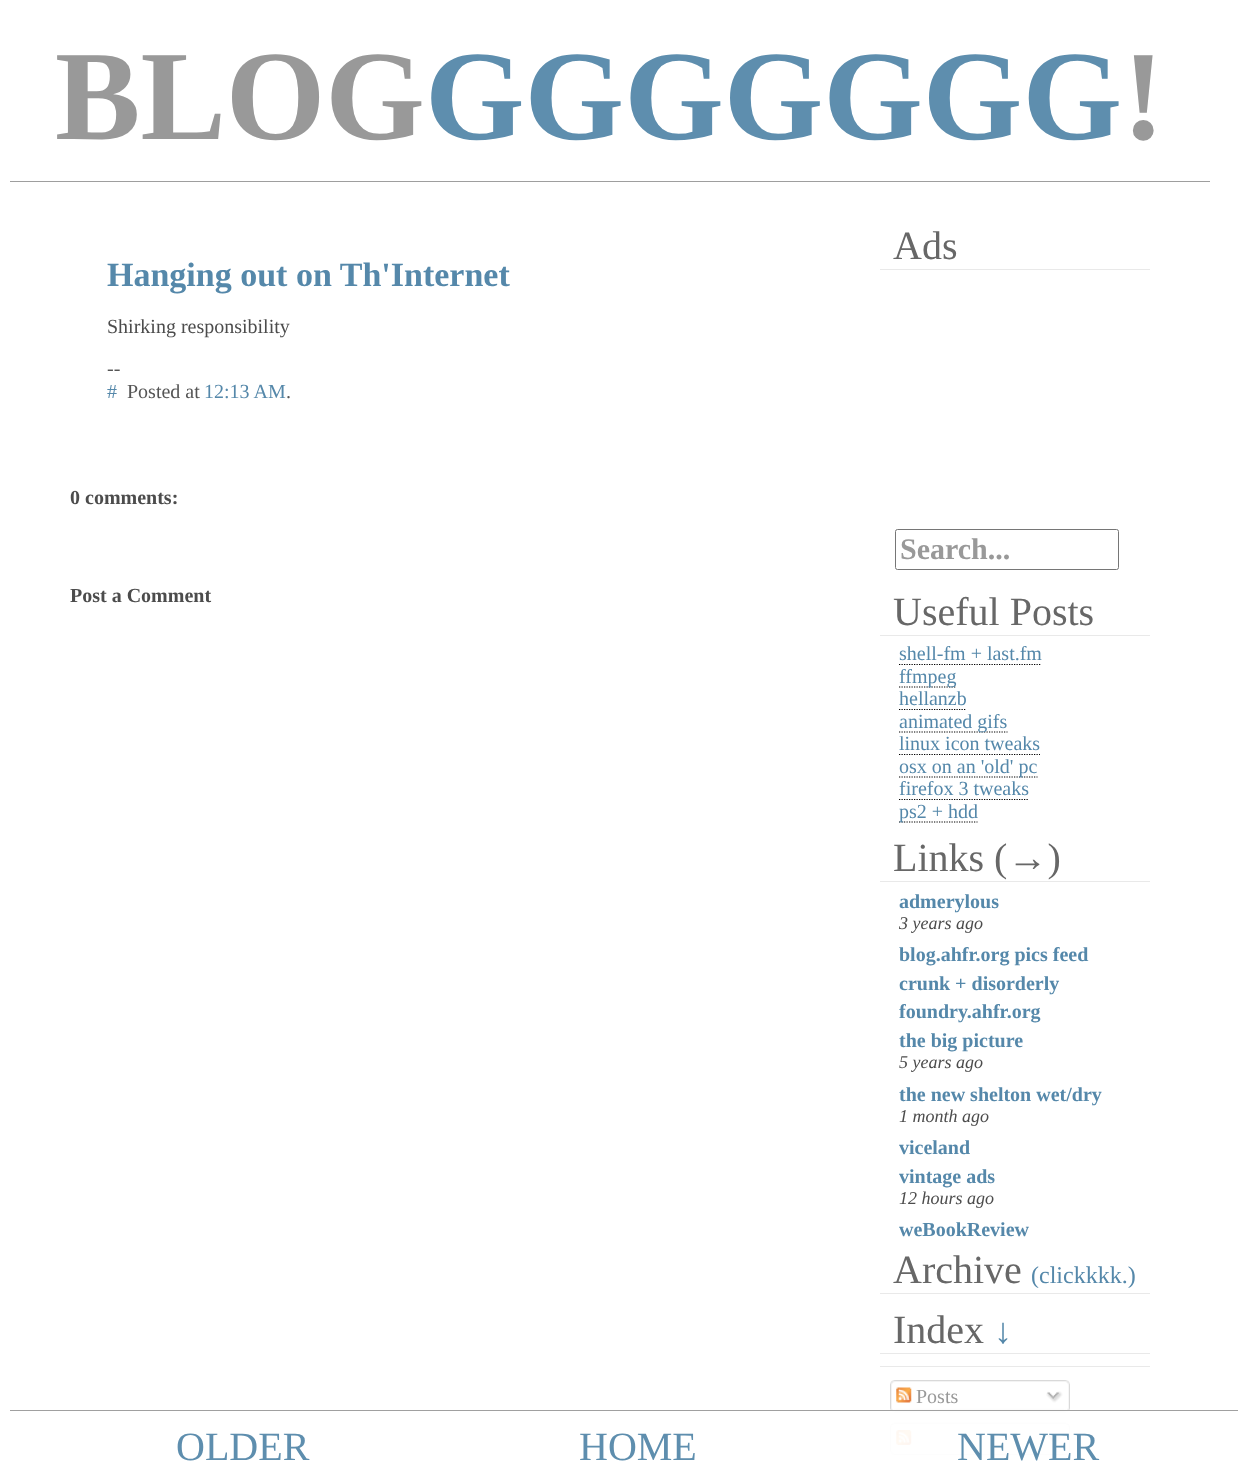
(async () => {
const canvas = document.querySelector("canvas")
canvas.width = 1238
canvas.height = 1476
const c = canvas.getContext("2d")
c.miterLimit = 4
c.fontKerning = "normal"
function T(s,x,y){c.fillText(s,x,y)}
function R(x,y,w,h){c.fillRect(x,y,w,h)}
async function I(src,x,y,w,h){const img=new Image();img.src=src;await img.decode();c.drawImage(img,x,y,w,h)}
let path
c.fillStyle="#fff"
R(0,0,1238,1476)
c.fillStyle="#9e9e9e"
R(10,181,1200,1)
c.font="bold 128px Liberation Serif"
c.fillStyle="#999"
T("BLOG",55,139)
c.fillStyle="#5e8eae"
T("GGGGGGG",425,139)
c.fillStyle="#999"
T("!",1122,139)
c.font="bold 34px Liberation Serif"
c.fillStyle="#58a"
T("Hanging out on Th'Internet",107,286)
c.font="20px Liberation Serif"
c.fillStyle="#4c4c4c"
T("Shirking responsibility",107,333)
c.fillStyle="#555"
T("--",107,375)
c.fillStyle="#58a"
T("#",107,398)
c.fillStyle="#555"
T("Posted at",127,398)
c.fillStyle="#58a"
T("12:13 AM",204,398)
c.fillStyle="#555"
T(".",286,398)
c.font="bold 20px Liberation Serif"
c.fillStyle="#4c4c4c"
T("0 comments:",70,504)
T("Post a Comment",70,602)
c.fillStyle="#e9e9e9"
R(880,269,270,1)
c.font="40px Liberation Serif"
c.fillStyle="#676767"
T("Ads",893,259)
c.beginPath()
c.roundRect(895.5,529.5,223,40,2)
c.strokeStyle="#767676"
c.stroke()
c.font="bold 30px Liberation Serif"
c.fillStyle="#999"
T("Search...",900,559)
c.fillStyle="#e9e9e9"
R(880,635,270,1)
c.font="40px Liberation Serif"
c.fillStyle="#676767"
T("Useful Posts",893,625)
c.font="20px Liberation Serif"
c.fillStyle="#58a"
T("shell-fm + last.fm",899,660)
path = new Path2D("M899 664.5h142")
c.strokeStyle="#000"
c.lineWidth=1.2
c.setLineDash([1.25,1.25])
c.stroke(path)
path = new Path2D("M899 687h57")
c.stroke(path)
T("ffmpeg",899,683)
T("hellanzb",899,705)
path = new Path2D("M899 709.5h67")
c.stroke(path)
path = new Path2D("M899 732h108.5")
c.stroke(path)
T("animated gifs",899,728)
T("linux icon tweaks",899,750)
path = new Path2D("M899 754.5h141")
c.stroke(path)
path = new Path2D("M899 777h138.5")
c.stroke(path)
T("osx on an 'old' pc",899,773)
T("firefox 3 tweaks",899,795)
path = new Path2D("M899 799.5h130")
c.stroke(path)
path = new Path2D("M899 822h78.5")
c.stroke(path)
T("ps2 + hdd",899,818)
c.fillStyle="#e9e9e9"
R(880,881,270,1)
c.font="40px Liberation Serif"
c.fillStyle="#676767"
T("Links (→)",893,871)
c.font="bold 20px Liberation Serif"
c.fillStyle="#58a"
T("admerylous",899,908)
c.font="italic 18px Liberation Serif"
c.fillStyle="#4c4c4c"
T("3 years ago",899,929)
c.font="bold 20px Liberation Serif"
c.fillStyle="#58a"
T("blog.ahfr.org pics feed",899,961)
T("crunk + disorderly",899,990)
T("foundry.ahfr.org",899,1018)
T("the big picture",899,1047)
c.font="italic 18px Liberation Serif"
c.fillStyle="#4c4c4c"
T("5 years ago",899,1068)
c.font="bold 20px Liberation Serif"
c.fillStyle="#58a"
T("the new shelton wet/dry",899,1101)
c.font="italic 18px Liberation Serif"
c.fillStyle="#4c4c4c"
T("1 month ago",899,1122)
c.font="bold 20px Liberation Serif"
c.fillStyle="#58a"
T("viceland",899,1154)
T("vintage ads",899,1183)
c.font="italic 18px Liberation Serif"
c.fillStyle="#4c4c4c"
T("12 hours ago",899,1204)
c.font="bold 20px Liberation Serif"
c.fillStyle="#58a"
T("weBookReview",899,1236)
c.fillStyle="#e9e9e9"
R(880,1293,270,1)
c.font="40px Liberation Serif"
c.fillStyle="#676767"
T("Archive",893,1283)
c.font="24px Liberation Serif"
c.fillStyle="#58a"
T("(clickkkk.)",1031,1283)
c.fillStyle="#e9e9e9"
R(880,1353,270,1)
c.font="40px Liberation Serif"
c.fillStyle="#676767"
T("Index",893,1343)
c.font="36px Liberation Serif"
c.fillStyle="#58a"
T("↓",994,1343)
c.fillStyle="#e9e9e9"
R(880,1366,270,1)
await I("1.png",890,1380,180,29)
await I("2.png",896,1387,16,16)
c.font="20px Liberation Serif"
c.fillStyle="#999"
T("Posts",916,1403)
await I("3.png",1046,1391,17,12)
await I("4.png",890,1408,180,5)
await I("5.png",890,1422,180,30)
await I("6.png",896,1430,16,15)
await I("7.png",1046,1434,17,11)
await I("8.png",890,1451,180,4)
c.fillStyle="#ffffffed"
R(890,1411,180,44)
c.fillStyle="#a0a0a0"
R(10,1410,1228,1)
c.font="40px Liberation Serif"
c.fillStyle="#5e8eae"
T("OLDER",176,1460)
T("HOME",579,1460)
T("NEWER",957,1460)
})()
